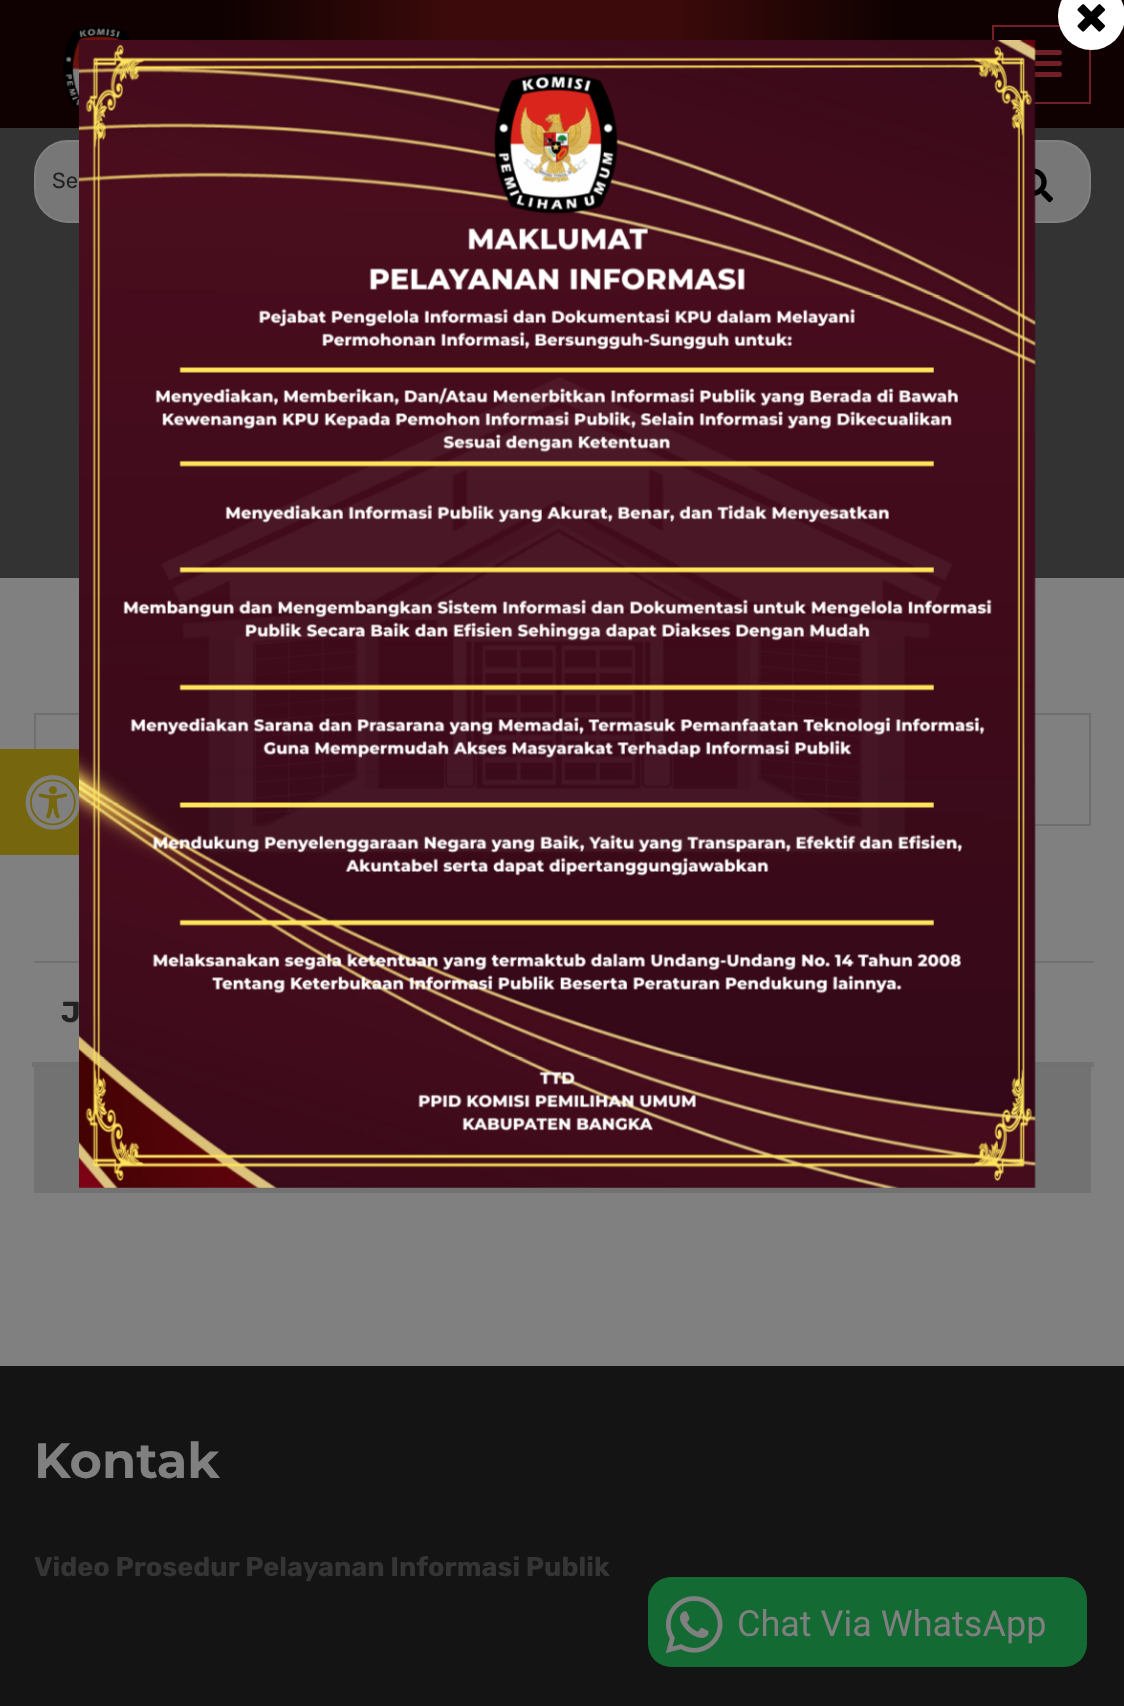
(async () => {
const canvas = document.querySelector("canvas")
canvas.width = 1124
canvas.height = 1706
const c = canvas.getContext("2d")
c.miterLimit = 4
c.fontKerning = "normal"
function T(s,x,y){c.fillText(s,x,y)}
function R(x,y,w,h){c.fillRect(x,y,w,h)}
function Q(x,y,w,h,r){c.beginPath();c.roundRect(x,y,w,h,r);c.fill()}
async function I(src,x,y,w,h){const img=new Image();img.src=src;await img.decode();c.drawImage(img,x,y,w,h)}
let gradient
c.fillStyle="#808080"
R(0,0,1124,1706)
c.fillStyle="#141414"
R(0,1366,1124,340)
gradient = c.createLinearGradient(0,64,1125,64)
gradient.addColorStop(0,"#0f0101")
gradient.addColorStop(.2,"#0f0101")
gradient.addColorStop(.4,"#3c0a0a")
gradient.addColorStop(.6,"#3c0a0a")
gradient.addColorStop(.8,"#0f0101")
gradient.addColorStop(1,"#0f0101")
c.fillStyle = gradient
R(0,0,1124,128)
c.strokeStyle="#731f28"
c.lineWidth=2
c.strokeRect(993,26,97,77)
c.fillStyle="#fff"
Q(1058,-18,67,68,33.5)
c.font="bold 54px Rubik"
c.fillStyle="#000"
T("×",1075,34)
c.fillStyle="#333"
R(0,128,1124,450)
await I("3.png",63,27,68,82)
c.fillStyle="#731f28"
Q(1022,50,40,5,2.5)
Q(1022,61,40,5,2.5)
Q(1022,72,40,5,2.5)
c.fillStyle="#777"
c.beginPath()
c.roundRect(35,141,1055,81,33)
c.fill()
c.strokeStyle="#808080"
c.stroke()
await I("4.png",1034,168,19,35)
c.strokeStyle="#6f6f6f"
c.strokeRect(35,714,1055,111)
c.fillStyle="#6f7173"
R(1034,961,60,2)
R(1034,1062,60,5)
c.fillStyle="#727272"
R(34,1067,1057,126)
await I("1.png",79,40,957,1148)
c.font="100 49.5px Montserrat"
c.fillStyle="#808080"
T("Kontak",34,1478)
c.font="bold 27px Rubik"
c.fillStyle="#353535"
T("Video Prosedur Pelayanan Informasi Publik",34,1576)
c.fillStyle="#136a33"
Q(648,1577,439,90,23)
await I("2.png",665,1596,58,57)
c.font="36px Roboto"
c.fillStyle="#808080"
T("Chat Via WhatsApp",737,1636)
c.font="22px Rubik"
c.fillStyle="#222"
T("Se",52,188)
c.fillStyle="#6f7173"
R(34,961,45,2)
R(32,1062,47,5)
c.font="bold 29px Rubik"
c.fillStyle="#222"
T("J",61,1022)
c.fillStyle="#76660e"
R(0,749,79,106)
await I("5.png",25,775,54,55)
})()
